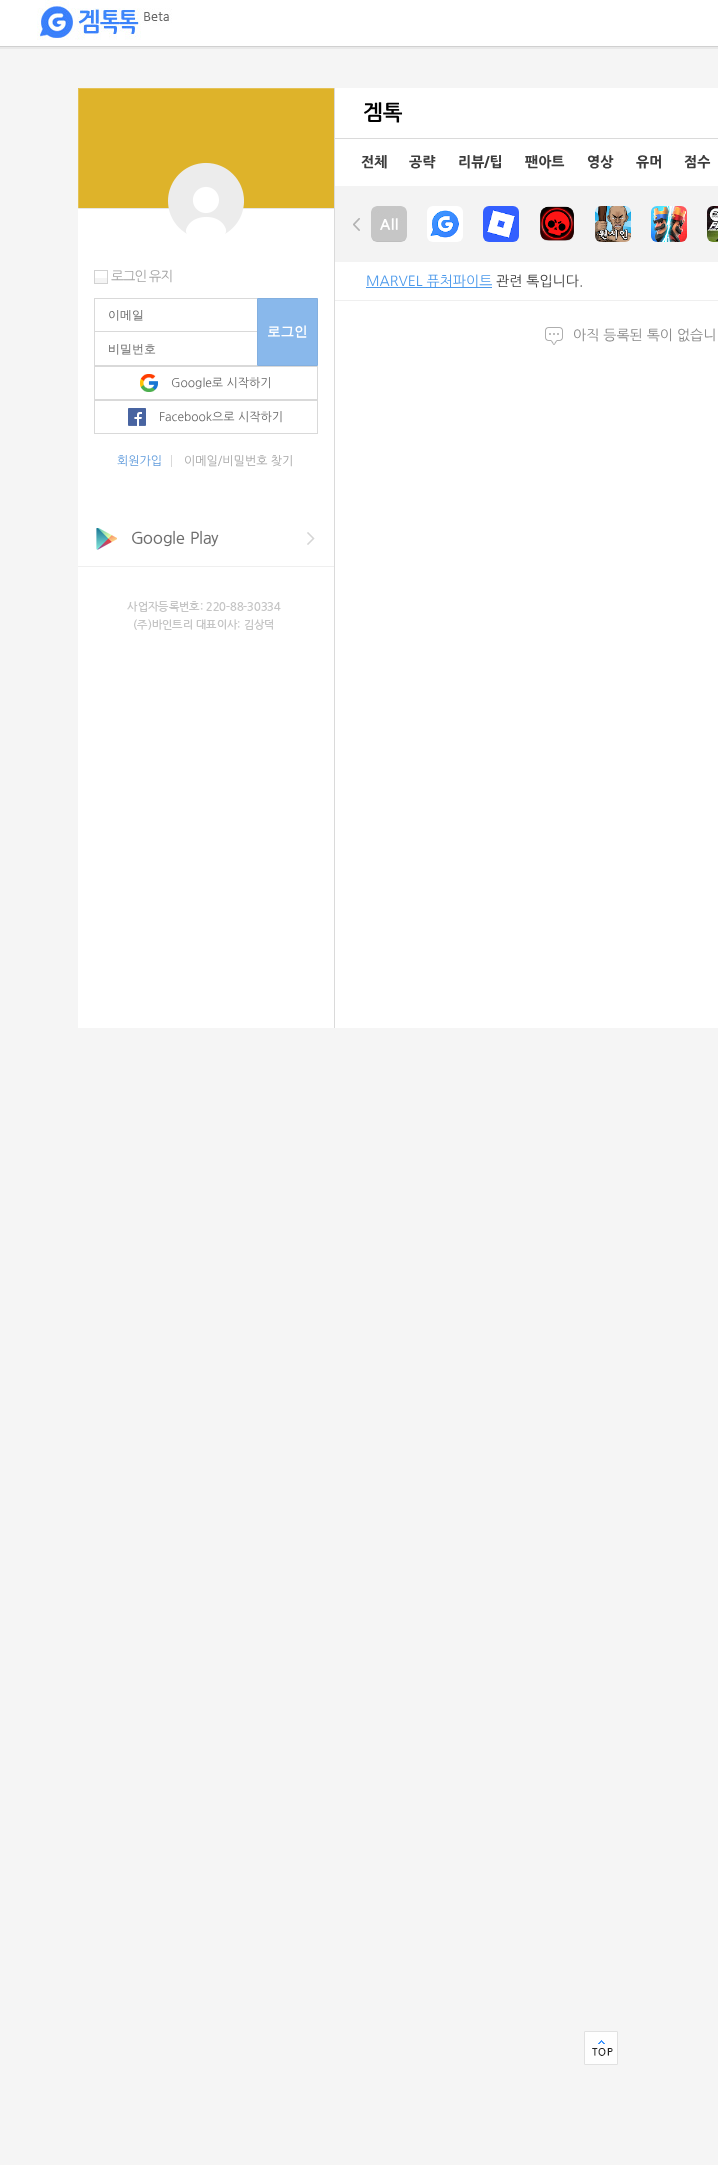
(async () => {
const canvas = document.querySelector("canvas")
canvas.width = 718
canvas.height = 2165
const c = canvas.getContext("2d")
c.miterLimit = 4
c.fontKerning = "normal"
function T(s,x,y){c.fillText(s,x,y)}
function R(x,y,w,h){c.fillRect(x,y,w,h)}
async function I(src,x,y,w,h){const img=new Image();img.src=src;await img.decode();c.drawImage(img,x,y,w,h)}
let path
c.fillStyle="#f5f5f5"
R(0,0,718,2165)
c.fillStyle="#e9e9e9"
R(0,47,718,2)
c.fillStyle="#fff"
R(0,0,718,46)
c.fillStyle="#d0d0d0"
R(0,46,718,1)
await I("1.png",37,0,135,40)
c.fillStyle="#fff"
R(78,88,640,940)
c.fillStyle="#e6e6e6"
R(78,208,256,1)
c.fillStyle="#dadada"
R(334,88,1,940)
R(335,138,383,1)
c.font="bold 21px NanumGothic"
c.fillStyle="#000"
T("겜톡",363,120)
c.font="800 14px NanumGothic"
c.fillStyle="#3d3d3d"
T("전체",361,167)
T("공략",409,167)
T("리뷰/팁",458,167)
T("팬아트",525,167)
T("영상",587,167)
T("유머",636,167)
T("점수",684,167)
c.fillStyle="#f3f3f3"
R(335,186,383,76)
await I("2.png",353,218,7,13)
await I("3.png",371,206,36,36)
await I("4.png",427,206,36,36)
await I("5.png",483,206,36,36)
await I("6.png",540,206,34,35)
await I("7.png",595,206,36,36)
await I("8.png",651,206,36,36)
await I("9.png",707,206,11,36)
c.fillStyle="#4b99eb"
R(366,287,126,1)
c.font="14px NanumGothic"
T("MARVEL 퓨처파이트",366,286)
c.fillStyle="#3d3d3d"
T("관련 톡입니다.",496,286)
c.fillStyle="#efefef"
R(335,300,383,1)
await I("10.png",545,327,18,18)
c.fillStyle="#898989"
T("아직 등록된 톡이 없습니",573,340)
c.fillStyle="#deb32a"
R(78,88,256,120)
c.fillStyle="#e5c255"
path = new Path2D("M78 88h256v1h-255z")
c.fill(path)
c.fillStyle="#ffffff33"
path = new Path2D("M78 209v-121l1 1v120z")
c.fill(path)
await I("11.png",168,162,76,72)
await I("12.png",94,270,14,14)
c.letterSpacing="-1px"
c.font="13.5px NanumGothic"
c.fillStyle="#a6a6a6"
T("로그인 유지",111,281)
c.fillStyle="#d9d9d9"
R(94,298,163,1)
R(94,331,163,1)
R(94,298,1,34)
c.letterSpacing="0px"
c.font="500 12px WenQuanYi Zen Hei"
c.fillStyle="#6a6a6a"
T("이메일",108,319)
c.fillStyle="#89b8eb"
c.beginPath()
c.rect(257.5,298.5,60,67)
c.fill()
c.strokeStyle="#83afdf"
c.stroke()
c.font="bold 13.5px WenQuanYi Zen Hei"
c.fillStyle="#fff"
T("로그인",267,336)
c.fillStyle="#d9d9d9"
R(94,365,163,1)
R(94,332,1,34)
c.font="500 12px WenQuanYi Zen Hei"
c.fillStyle="#6a6a6a"
T("비밀번호",108,353)
c.strokeStyle="#d9d9d9"
c.strokeRect(94.5,366.5,223,33)
await I("13.png",140,374,18,18)
c.font="12px NanumGothic"
T("Google로 시작하기",171,387)
c.strokeRect(94.5,400.5,223,33)
await I("14.png",128,408,18,18)
T("Facebook으로 시작하기",159,421)
c.fillStyle="#619cdc"
T("회원가입",117,465)
c.fillStyle="#d9d9d9"
R(171,455,1,12)
c.fillStyle="#a6a6a6"
T("이메일/비밀번호 찾기",184,465)
await I("15.png",78,528,256,39)
await I("16.png",127,601,154,29)
await I("17.png",584,2031,34,34)
})()
